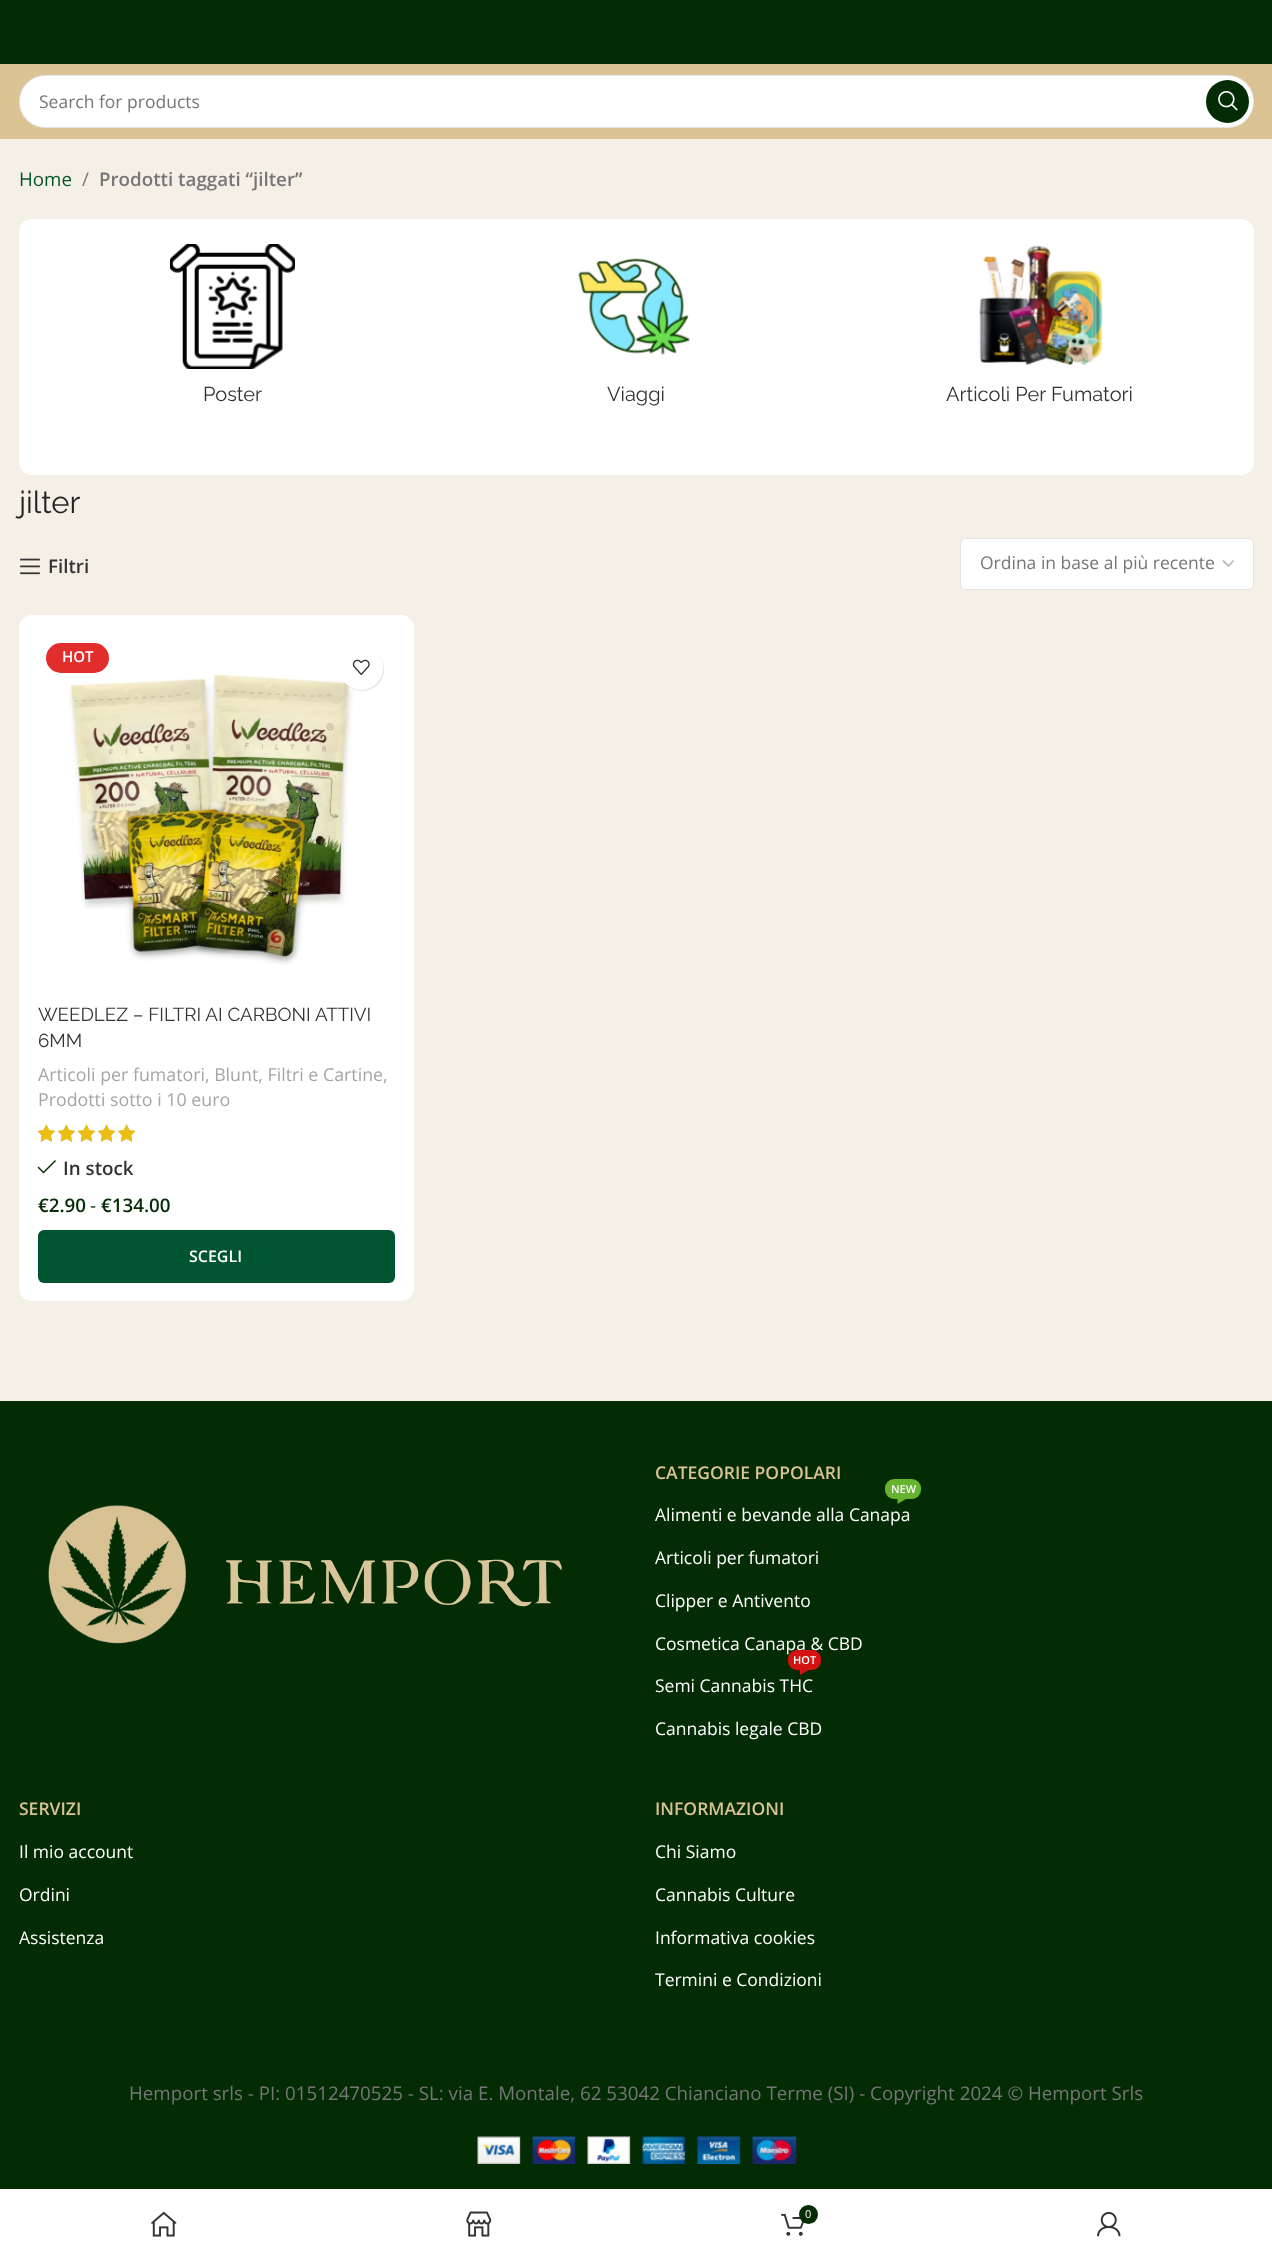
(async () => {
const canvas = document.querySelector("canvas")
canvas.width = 1272
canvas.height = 2257
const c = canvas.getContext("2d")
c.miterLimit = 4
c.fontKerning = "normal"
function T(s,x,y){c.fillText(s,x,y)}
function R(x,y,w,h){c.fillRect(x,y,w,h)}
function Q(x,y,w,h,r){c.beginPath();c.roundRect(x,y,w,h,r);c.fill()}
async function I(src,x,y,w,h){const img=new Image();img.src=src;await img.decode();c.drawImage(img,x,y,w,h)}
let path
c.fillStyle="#fff"
R(0,0,1272,2257)
c.fillStyle="#042c04"
R(0,0,1272,64)
c.fillStyle="#dbc393"
R(0,64,1272,75)
c.fillStyle="#fff"
Q(19,75,1235,53,26.5)
c.beginPath()
c.roundRect(19.5,75.5,1234,52,26)
c.strokeStyle="#0000001a"
c.stroke()
c.font="17.5px Open Sans"
c.fillStyle="#767676"
T("Search for products",39,108)
c.fillStyle="#042c04"
c.beginPath()
c.arc(1227.5,101.5,21.5,0,7)
c.fill()
await I("1.png",1218,91,20,20)
c.fillStyle="#f5f0e6"
R(0,139,1272,1262)
c.font="18.75px Open Sans"
c.fillStyle="#04542c"
T("Home",19,186)
c.fillStyle="#767676"
T("/",82,186)
c.font="600 18.75px Open Sans"
T("Prodotti taggati “jilter”",99,186)
c.fillStyle="#fff"
Q(19,219,1235,256,13)
await I("2.png",170,244,125,125)
c.font="20px Raleway"
c.fillStyle="#333"
T("Poster",203,401)
await I("3.png",578,258,112,97)
T("Viaggi",607,401)
await I("4.png",979,245,124,120)
T("Articoli Per Fumatori",946,401)
c.font="31px Raleway"
c.fillStyle="#242424"
T("jilter",19,513)
await I("5.png",20,558,20,17)
c.font="600 18.75px Open Sans"
c.fillStyle="#333"
T("Filtri",48,573)
c.fillStyle="#fff"
Q(960,538,294,52,6)
path = new Path2D("M1223 560.5l5.5 5.5l5-5.5")
c.strokeStyle="#bbb"
c.lineWidth=1.8
c.stroke(path)
c.beginPath()
c.roundRect(960.5,538.5,293,51,5.5)
c.strokeStyle="#0000001a"
c.lineWidth=1
c.stroke()
c.font="17.5px Open Sans"
c.fillStyle="#767676"
T("Ordina in base al più recente",980,569)
c.fillStyle="#fff"
Q(19,615,395,686,13)
c.fillStyle="#e22d2d"
Q(46,643,63,30,15)
c.font="600 15px Open Sans"
c.fillStyle="#fff"
T("HOT",62,662)
await I("6.png",69,674,284,291)
c.fillStyle="#0000001a"
c.filter="blur(0.5px)"
c.beginPath()
c.roundRect(340,648,44,43,21.5)
c.fill()
c.filter="none"
c.fillStyle="#fff"
c.beginPath()
c.arc(361,668,22,0,7)
c.fill()
await I("7.png",352,659,18,16)
c.font="18.75px Raleway"
c.fillStyle="#333"
T("WEEDLEZ – FILTRI AI CARBONI ATTIVI",38,1021)
T("6MM",38,1047)
c.font="17.8px Open Sans"
c.fillStyle="#a5a5a5"
T("Articoli per fumatori, Blunt, Filtri e Cartine,",38,1081)
T("Prodotti sotto i 10 euro",38,1106)
await I("8.png",37,1124,99,18)
await I("9.png",38,1124,98,18)
c.fillStyle="#042c04"
path = new Path2D("M56 1161l-1-1l-11.5 11.5l-5-5l-1 1l6 6z")
c.fill(path)
c.font="600 18.75px Open Sans"
c.fillStyle="#333"
T("In stock",63,1175)
c.fillStyle="#042c04"
T("€2.90",38,1212)
c.font="18.75px Open Sans"
T("-",90,1212)
c.font="600 18.75px Open Sans"
T("€134.00",101,1212)
c.fillStyle="#005430"
Q(38,1230,357,53,6)
c.font="600 16px Open Sans"
c.fillStyle="#fff"
T("SCEGLI",189,1262)
c.fillStyle="#042c04"
R(0,1401,1272,788)
await I("10.png",48,1505,514,139)
c.font="600 17.5px Open Sans"
c.fillStyle="#dbc393"
T("CATEGORIE POPOLARI",655,1479)
c.fillStyle="#65b32e"
Q(885,1479,36,20,9)
c.font="600 11px Open Sans"
c.fillStyle="#fff"
T("NEW",891,1493)
c.fillStyle="#65b32e"
path = new Path2D("M897.5 1499h8.5l-8.5 5z")
c.fill(path)
c.font="17.5px Open Sans"
c.fillStyle="#fff"
T("Alimenti e bevande alla Canapa",655,1521)
T("Articoli per fumatori",655,1564)
T("Clipper e Antivento",655,1607)
T("Cosmetica Canapa & CBD",655,1650)
c.fillStyle="#d41212"
Q(788,1650,33,20,9)
c.font="600 11px Open Sans"
c.fillStyle="#fff"
T("HOT",793,1664)
c.fillStyle="#d41212"
path = new Path2D("M800 1670h9l-9 5z")
c.fill(path)
c.font="17.5px Open Sans"
c.fillStyle="#fff"
T("Semi Cannabis THC",655,1692)
T("Cannabis legale CBD",655,1735)
c.font="600 17.5px Open Sans"
c.fillStyle="#dbc393"
T("SERVIZI",19,1815)
c.font="17.5px Open Sans"
c.fillStyle="#fff"
T("Il mio account",19,1858)
T("Ordini",19,1901)
T("Assistenza",19,1944)
c.font="600 17.5px Open Sans"
c.fillStyle="#dbc393"
T("INFORMAZIONI",655,1815)
c.font="17.5px Open Sans"
c.fillStyle="#fff"
T("Chi Siamo",655,1858)
T("Cannabis Culture",655,1901)
T("Informativa cookies",655,1944)
T("Termini e Condizioni",655,1986)
c.fillStyle="#042704"
R(0,2051,1272,1)
c.font="18.75px Open Sans"
c.fillStyle="#767676"
T("Hemport srls - PI: 01512470525 - SL: via E. Montale, 62 53042 Chianciano Terme (SI) - Copyright 2024 © Hemport Srls",129,2100)
await I("11.png",477,2136,320,28)
await I("12.png",151,2211,26,26)
await I("13.png",466,2211,26,26)
await I("14.png",781,2213,24,23)
c.fillStyle="#042c04"
c.beginPath()
c.arc(808.5,2214.5,9.5,0,7)
c.fill()
c.font="11px Open Sans"
c.fillStyle="#fff"
T("0",805,2218)
await I("15.png",1097,2212,24,25)
})()
